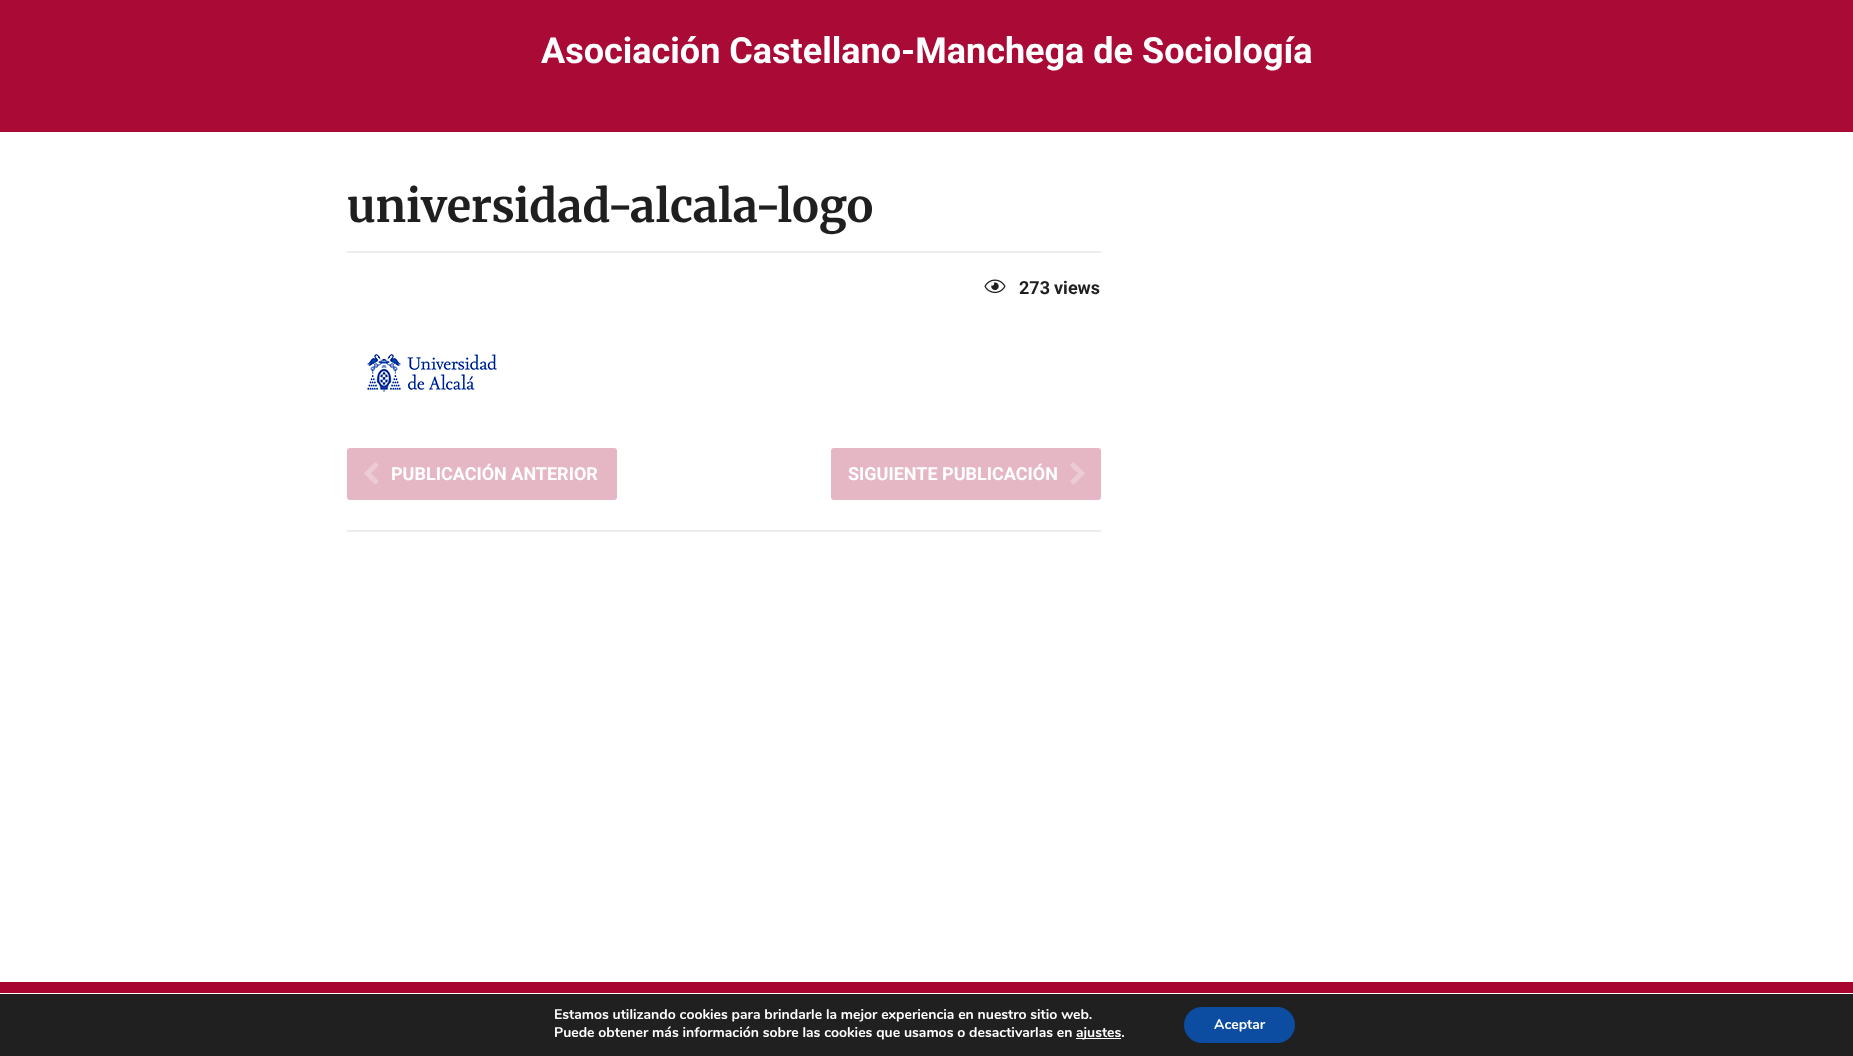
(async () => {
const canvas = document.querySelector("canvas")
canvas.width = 1853
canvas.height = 1056
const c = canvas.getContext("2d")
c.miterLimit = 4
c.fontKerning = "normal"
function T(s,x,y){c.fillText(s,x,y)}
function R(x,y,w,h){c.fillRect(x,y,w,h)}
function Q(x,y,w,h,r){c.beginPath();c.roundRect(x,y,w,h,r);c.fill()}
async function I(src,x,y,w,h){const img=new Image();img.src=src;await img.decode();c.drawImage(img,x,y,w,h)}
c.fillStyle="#fff"
R(0,0,1853,1056)
c.fillStyle="#a90b36"
R(0,0,1853,132)
c.font="bold 36px Roboto"
c.fillStyle="#fff"
T("Asociación Castellano-Manchega de Sociología",541,63)
c.font="300 45px Merriweather"
c.fillStyle="#1f1f1f"
T("universidad-alcala-logo",347,222)
c.fillStyle="#ececec"
R(347,251,754,2)
await I("1.png",984,279,22,15)
c.font="bold 18px Roboto"
c.fillStyle="#1f1f1f"
T("273",1019,294)
T("views",1054,294)
await I("2.png",367,354,130,38)
c.fillStyle="#e5b6c3"
Q(347,448,270,52,3)
await I("3.png",364,462,15,23)
c.fillStyle="#fff"
T("PUBLICACIÓN ANTERIOR",391,480)
c.fillStyle="#e5b6c3"
Q(831,448,270,52,3)
c.fillStyle="#fff"
T("SIGUIENTE PUBLICACIÓN",848,480)
await I("4.png",1070,462,15,23)
c.fillStyle="#ececec"
R(347,530,754,2)
c.fillStyle="#a80530"
R(0,982,1853,11)
c.fillStyle="#202020"
R(0,994,1853,62)
c.font="bold 14px Nunito"
c.fillStyle="#fff"
T("Estamos utilizando cookies para brindarle la mejor experiencia en nuestro sitio web.",554,1019)
T("Puede obtener más información sobre las cookies que usamos o desactivarlas en",554,1037)
R(1076,1038,45,1)
T("ajustes.",1076,1037)
c.fillStyle="#0c4da2"
Q(1184,1007,111,36,18)
c.fillStyle="#fff"
T("Aceptar",1214,1029)
})()
